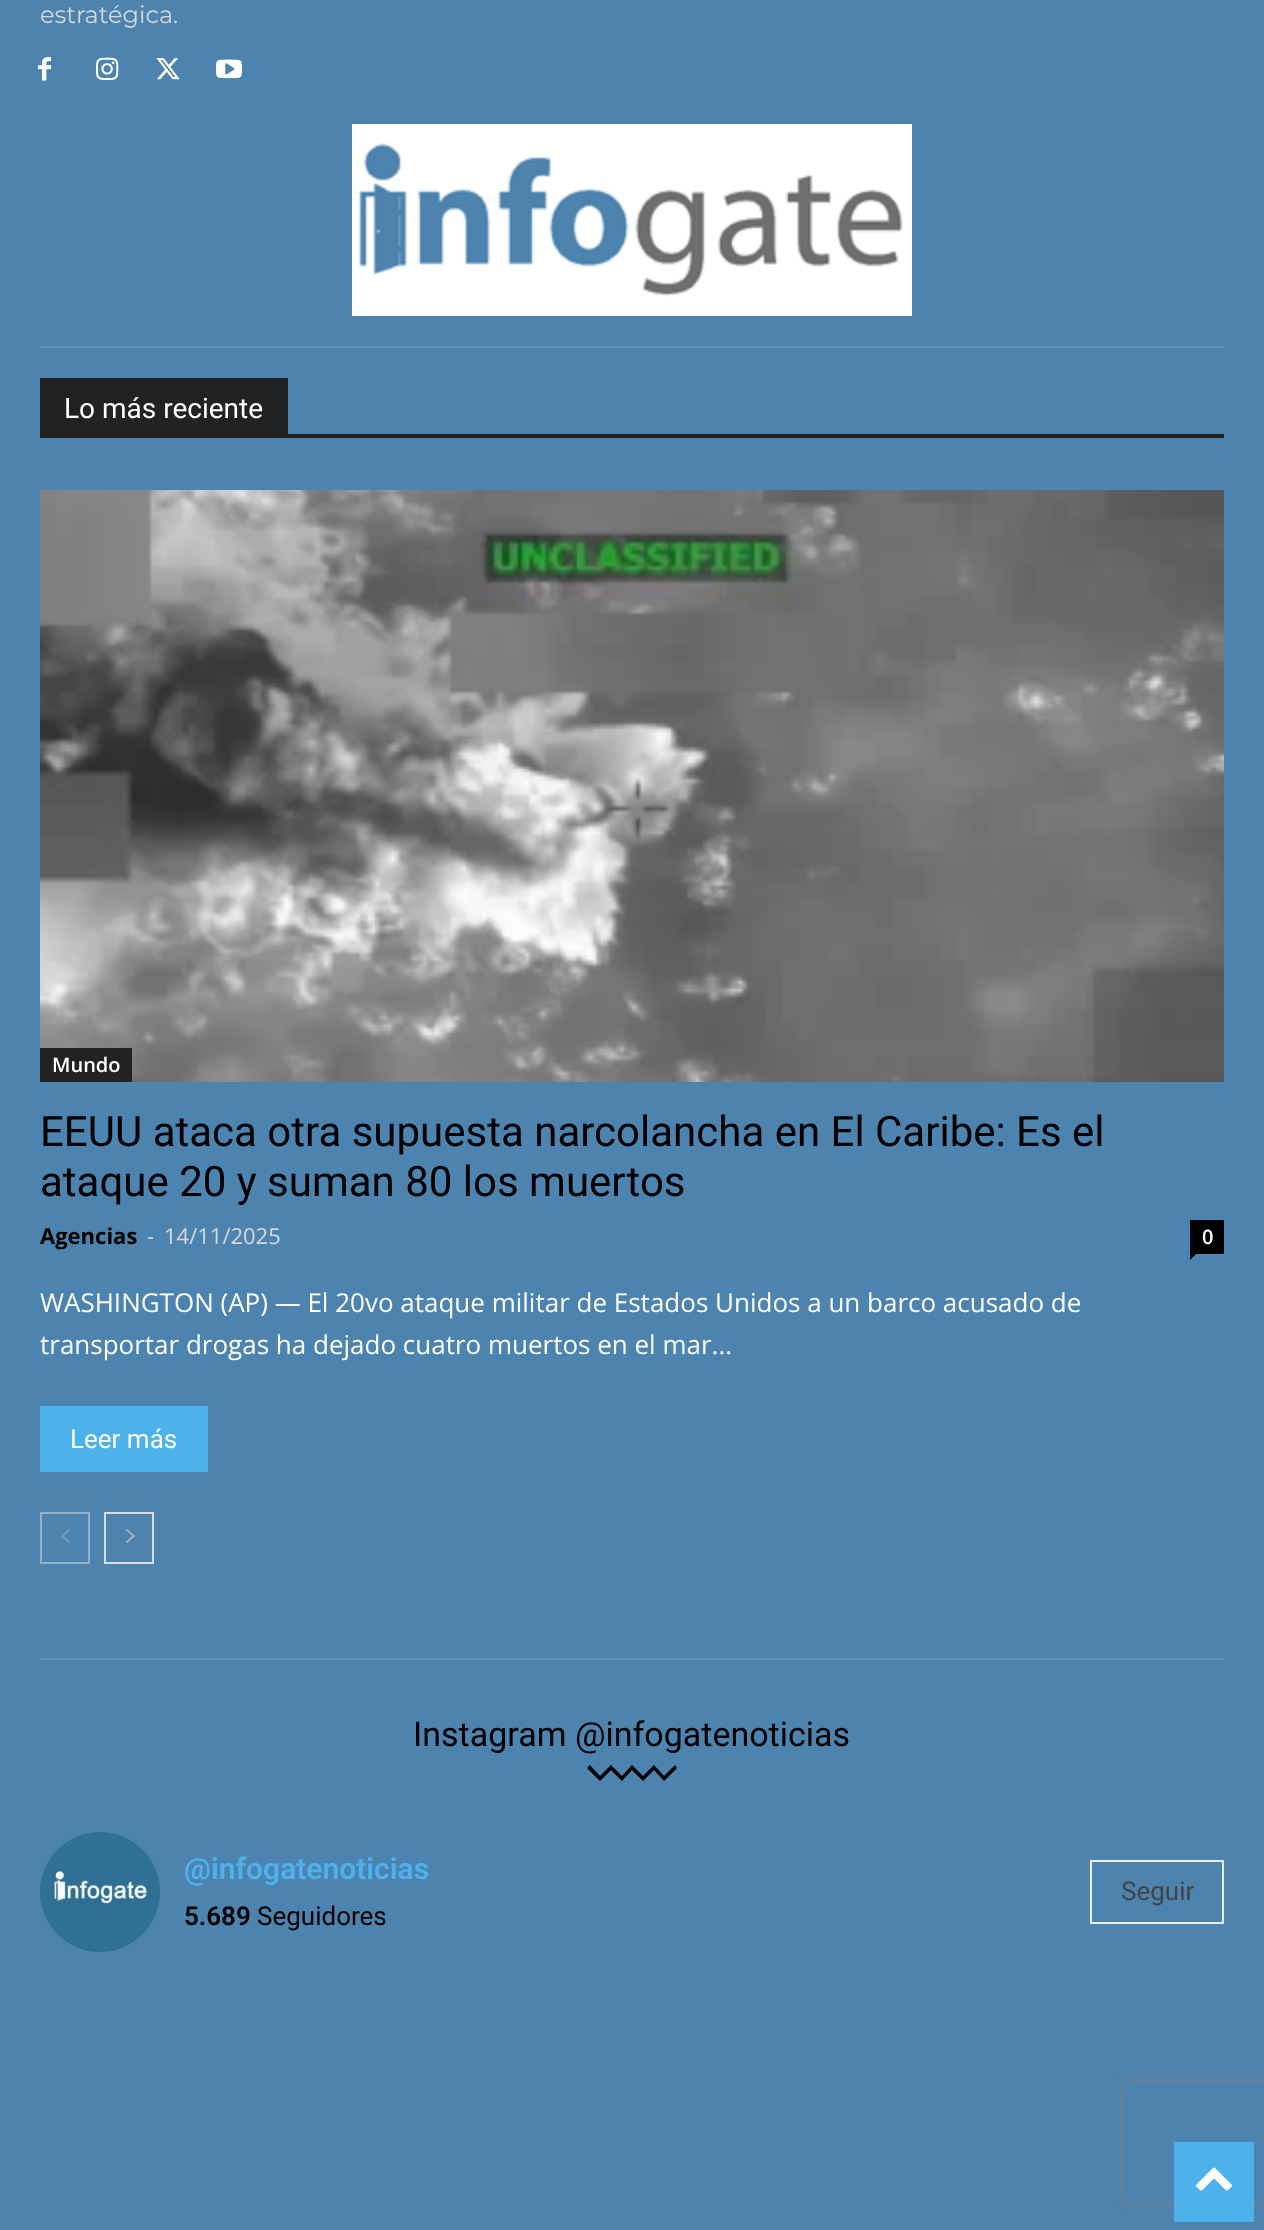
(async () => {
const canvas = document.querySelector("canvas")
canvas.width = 1264
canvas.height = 2230
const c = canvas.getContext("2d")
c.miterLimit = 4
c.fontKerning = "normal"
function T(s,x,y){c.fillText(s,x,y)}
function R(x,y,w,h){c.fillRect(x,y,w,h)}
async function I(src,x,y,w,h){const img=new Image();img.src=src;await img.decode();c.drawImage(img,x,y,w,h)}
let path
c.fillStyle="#4d83af"
R(0,0,1264,2230)
c.fillStyle="#5f8fb7"
R(40,346,1184,2)
c.font="24px Montserrat"
c.fillStyle="#d8d8d8"
T("estratégica.",40,23)
await I("1.png",38,57,13,24)
await I("2.png",96,57,23,23)
await I("3.png",156,58,24,22)
await I("4.png",216,59,26,20)
await I("5.png",352,124,560,192)
c.fillStyle="#5f8fb7"
R(40,1658,1184,2)
c.fillStyle="#222"
R(40,434,1184,4)
R(40,378,248,56)
c.font="28px Roboto"
c.fillStyle="#fff"
T("Lo más reciente",64,418)
await I("6.png",40,490,1184,592)
c.fillStyle="#222"
R(40,1048,92,34)
c.font="600 20px Open Sans"
c.fillStyle="#fff"
T("Mundo",52,1072)
c.font="42px Roboto"
c.fillStyle="#000"
T("EEUU ataca otra supuesta narcolancha en El Caribe: Es el",40,1146)
T("ataque 20 y suman 80 los muertos",40,1196)
c.font="bold 22px Open Sans"
T("Agencias",40,1244)
c.font="22px Open Sans"
c.fillStyle="#d8d8d8"
T("-",147,1244)
T("14/11/2025",164,1244)
c.fillStyle="#000"
R(1190,1220,34,34)
c.font="600 20px Open Sans"
c.fillStyle="#fff"
T("0",1202,1244)
c.fillStyle="#000"
path = new Path2D("M1190 1254h6l-6 6z")
c.fill(path)
c.font="26px Open Sans"
c.fillStyle="#fff"
T("WASHINGTON (AP) — El 20vo ataque militar de Estados Unidos a un barco acusado de",40,1312)
T("transportar drogas ha dejado cuatro muertos en el mar...",40,1354)
c.fillStyle="#4db2ec"
R(40,1406,168,66)
c.font="26px Roboto"
c.fillStyle="#fff"
T("Leer más",70,1448)
c.strokeStyle="#95b0c6"
c.lineWidth=2
c.strokeRect(41,1513,48,50)
await I("7.png",61,1529,9,14)
c.strokeStyle="#dcdcdc"
c.strokeRect(105,1513,48,50)
await I("8.png",126,1529,9,14)
c.font="34px Roboto"
c.fillStyle="#000"
T("Instagram @infogatenoticias",413,1746)
path = new Path2D("M677 1768l-13 13l-10-11l-11 11l-11-11l-10 11l-11-11l-11 11l-13-13l3-3l10 11l11-11l11 11l10-11l11 11l11-11l10 11l11-11z")
c.fill(path)
await I("9.png",40,1832,120,120)
c.font="600 30px Roboto"
c.fillStyle="#4db2ec"
T("@infogatenoticias",184,1879)
c.strokeStyle="#ededed"
c.strokeRect(1091,1861,132,62)
c.font="26px Roboto"
c.fillStyle="#444"
T("Seguir",1121,1900)
c.font="600 26px Roboto"
c.fillStyle="#000"
T("5.689",184,1925)
c.font="26px Roboto"
T("Seguidores",257,1925)
c.save()
path = new Path2D("M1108 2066h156v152h-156zm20 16h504c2 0 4 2 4 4v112c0 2-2 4-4 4h-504c-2 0-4-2-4-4v-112c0-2 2-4 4-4z")
c.clip(path,"evenodd")
c.fillStyle="#808080"
c.filter="blur(5px)"
c.beginPath()
c.roundRect(1124,2082,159,120,4)
c.fill()
c.filter="none"
c.restore()
c.fillStyle="#4db2ec"
R(1174,2142,80,80)
await I("10.png",1196,2167,36,24)
})()
